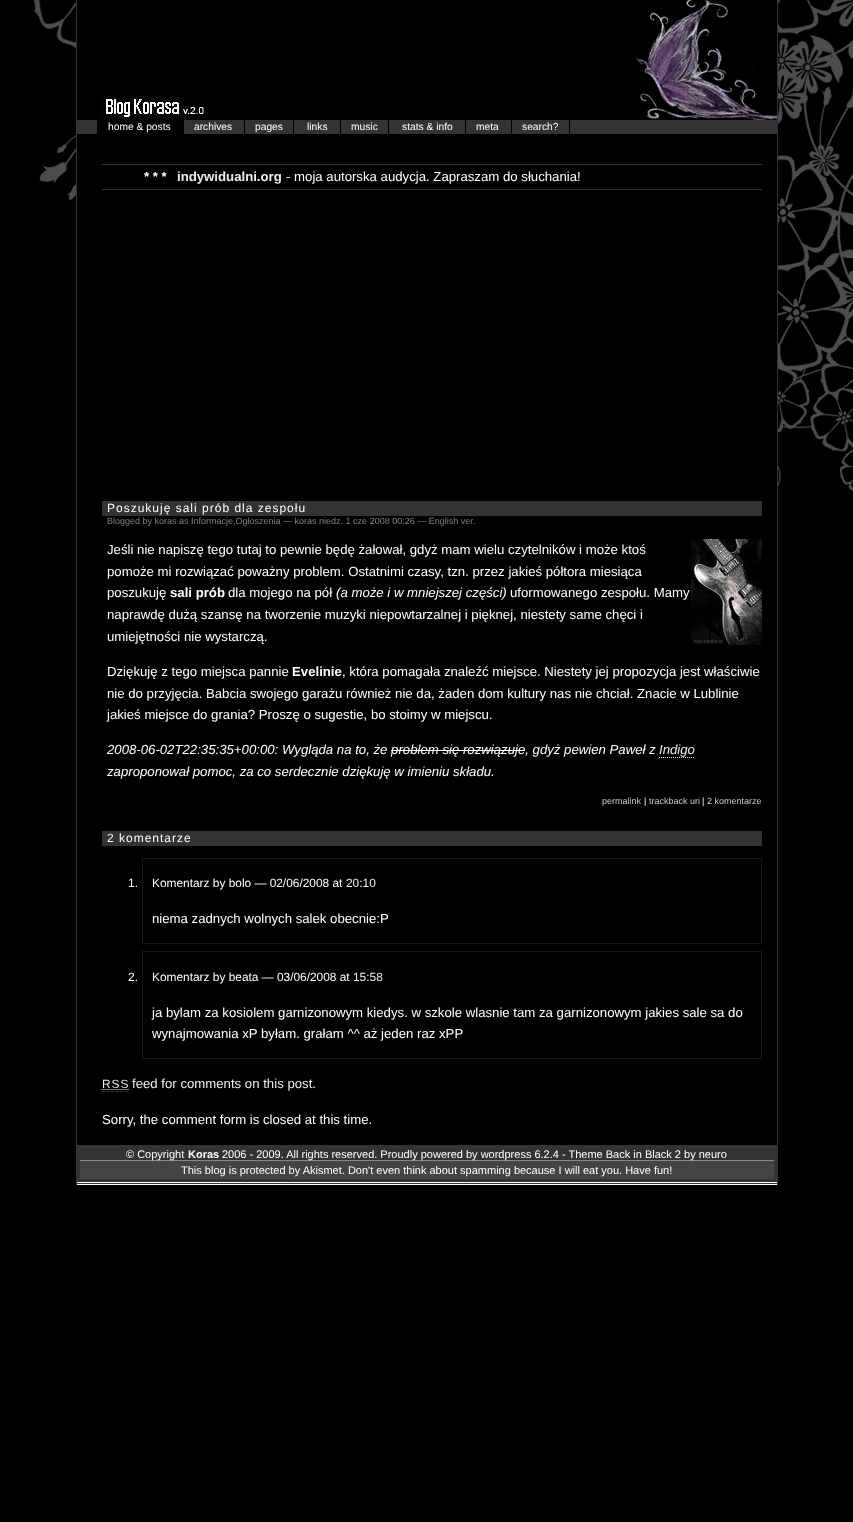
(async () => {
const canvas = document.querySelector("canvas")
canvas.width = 853
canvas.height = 1522
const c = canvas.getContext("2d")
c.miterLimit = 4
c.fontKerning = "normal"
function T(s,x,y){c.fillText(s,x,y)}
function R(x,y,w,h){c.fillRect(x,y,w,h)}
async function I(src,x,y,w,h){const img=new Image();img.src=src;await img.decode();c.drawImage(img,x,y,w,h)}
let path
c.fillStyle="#000"
R(0,0,853,1522)
await I("1.png",33,0,820,491)
R(77,0,700,491)
c.fillStyle="#333"
R(777,0,1,1185)
R(76,0,1,1185)
await I("2.png",101,0,676,120)
R(77,120,700,14)
c.fillStyle="#000"
R(97,120,87,14)
c.font="10.25px Liberation Sans"
c.fillStyle="#fff"
T("home & posts",108,130)
T("archives",194,130)
c.fillStyle="#000"
R(244,120,1,15)
c.fillStyle="#fff"
T("pages",255,130)
c.fillStyle="#000"
R(293,120,1,15)
c.fillStyle="#fff"
T("links",307,130)
c.fillStyle="#000"
R(340,120,1,15)
c.fillStyle="#fff"
T("music",351,130)
c.fillStyle="#000"
R(388,120,1,15)
c.fillStyle="#fff"
T("stats & info",402,130)
c.fillStyle="#000"
R(465,120,1,15)
c.fillStyle="#fff"
T("meta",476,130)
c.fillStyle="#000"
R(511,120,1,15)
c.fillStyle="#fff"
T("search?",522,130)
c.fillStyle="#000"
R(569,120,1,15)
c.fillStyle="#333"
R(102,164,660,1)
R(102,189,660,1)
c.font="bold 13.2px Liberation Sans"
c.fillStyle="#fff"
T("* * *",144,181)
c.fillStyle="#ededed"
T("indywidualni.org",177,181)
c.font="13.2px Liberation Sans"
c.fillStyle="#fff"
T("- moja autorska audycja. Zapraszam do słuchania!",286,181)
c.fillStyle="#333"
R(102,501,660,15)
c.letterSpacing="1px"
c.font="12px Liberation Sans"
c.fillStyle="#fff"
T("Poszukuję sali prób dla zespołu",107,512)
c.letterSpacing="0px"
c.font="9px Liberation Sans"
c.fillStyle="#808080"
T("Blogged by koras as Informacje,Ogłoszenia — koras niedz. 1 cze 2008 00:26 — English ver.",107,524)
c.font="13.2px Liberation Sans"
c.fillStyle="#fff"
T("Jeśli nie napiszę tego tutaj to pewnie będę żałował, gdyż mam wielu czytelników i może ktoś",107,554)
await I("3.png",691,539,71,106)
T("pomoże mi rozwiązać poważny problem. Ostatnimi czasy, tzn. przez jakieś półtora miesiąca",107,576)
T("poszukuję",107,597)
c.font="bold 13.2px Liberation Sans"
T("sali prób",170,597)
c.font="13.2px Liberation Sans"
T("dla mojego na pół",228,597)
c.font="italic 13.2px Liberation Sans"
T("(a może i w mniejszej części)",336,597)
c.font="13.2px Liberation Sans"
T("uformowanego zespołu. Mamy",510,597)
T("naprawdę dużą szansę na tworzenie muzyki niepowtarzalnej i pięknej, niestety same chęci i",107,619)
T("umiejętności nie wystarczą.",107,641)
T("Dziękuję z tego miejsca pannie",107,676)
c.font="bold 13.2px Liberation Sans"
T("Evelinie",292,676)
c.font="13.2px Liberation Sans"
T(", która pomagała znaleźć miejsce. Niestety jej propozycja jest właściwie",342,676)
T("nie do przyjęcia. Babcia swojego garażu również nie da, żaden dom kultury nas nie chciał. Znacie w Lublinie",107,698)
T("jakieś miejsce do grania? Proszę o sugestie, bo stoimy w miejscu.",107,719)
c.font="italic 13.2px Liberation Sans"
T("2008-06-02T22:35:35+00:00: Wygląda na to, że problem się rozwiązuje, gdyż pewien Paweł z",107,754)
R(391,750,134,1)
c.fillStyle="#ededed"
T("Indigo",659,754)
path = new Path2D("M659 757.5h36")
c.strokeStyle="#ededed"
c.setLineDash([1,1])
c.stroke(path)
c.fillStyle="#fff"
T("zaproponował pomoc, za co serdecznie dziękuję w imieniu składu.",107,776)
c.font="9px Liberation Sans"
c.fillStyle="#ccc"
T("permalink",602,804)
c.fillStyle="#fff"
T("|",644,804)
c.fillStyle="#ccc"
T("trackback uri",649,804)
c.fillStyle="#fff"
T("|",702,804)
c.fillStyle="#ccc"
T("2 komentarze",707,804)
c.fillStyle="#333"
R(102,831,660,15)
c.letterSpacing="1px"
c.font="12px Liberation Sans"
c.fillStyle="#fff"
T("2 komentarze",107,842)
c.strokeStyle="#191919"
c.setLineDash([])
c.strokeRect(142.5,858.5,619,85)
c.letterSpacing="0px"
T("1.",128,887)
c.font="11.9px Liberation Sans"
T("Komentarz by bolo — 02/06/2008 at",152,887)
c.fillStyle="#ededed"
T("20:10",346,887)
c.font="13.2px Liberation Sans"
c.fillStyle="#fff"
T("niema zadnych wolnych salek obecnie:P",152,923)
c.strokeRect(142.5,951.5,619,107)
c.font="12px Liberation Sans"
T("2.",128,981)
c.font="11.9px Liberation Sans"
T("Komentarz by beata — 03/06/2008 at",152,981)
c.fillStyle="#ededed"
T("15:58",353,981)
c.font="13.2px Liberation Sans"
c.fillStyle="#fff"
T("ja bylam za kosiolem garnizonowym kiedys. w szkole wlasnie tam za garnizonowym jakies sale sa do",152,1017)
T("wynajmowania xP byłam. grałam ^^ aż jeden raz xPP",152,1038)
c.letterSpacing="1px"
c.font="11.9px Liberation Sans"
c.fillStyle="#ededed"
T("RSS",102,1088)
path = new Path2D("M102 1091.5h26")
c.strokeStyle="#333"
c.setLineDash([3,1.6])
c.stroke(path)
path = new Path2D("M101.5 1089.5h27")
c.strokeStyle="#ededed"
c.setLineDash([1,1])
c.stroke(path)
c.letterSpacing="0px"
c.font="13.2px Liberation Sans"
T("feed for comments on this post.",132,1088)
c.fillStyle="#fff"
T("Sorry, the comment form is closed at this time.",102,1124)
c.fillStyle="#333"
R(77,1145,700,39)
c.fillStyle="#fff"
R(77,1182,700,1)
R(77,1184,700,1)
c.fillStyle="#888"
R(80,1160,694,1)
c.font="11px Liberation Sans"
c.fillStyle="#fff"
T("© Copyright",126,1158)
c.font="bold 11px Liberation Sans"
T("Koras",188,1158)
c.font="11px Liberation Sans"
T("2006 - 2009. All rights reserved. Proudly powered by wordpress 6.2.4 - Theme Back in Black 2 by neuro",222,1158)
c.fillStyle="#444"
R(80,1161,694,18)
c.fillStyle="#fff"
T("This blog is protected by Akismet. Don't even think about spamming because I will eat you. Have fun!",181,1174)
})()
